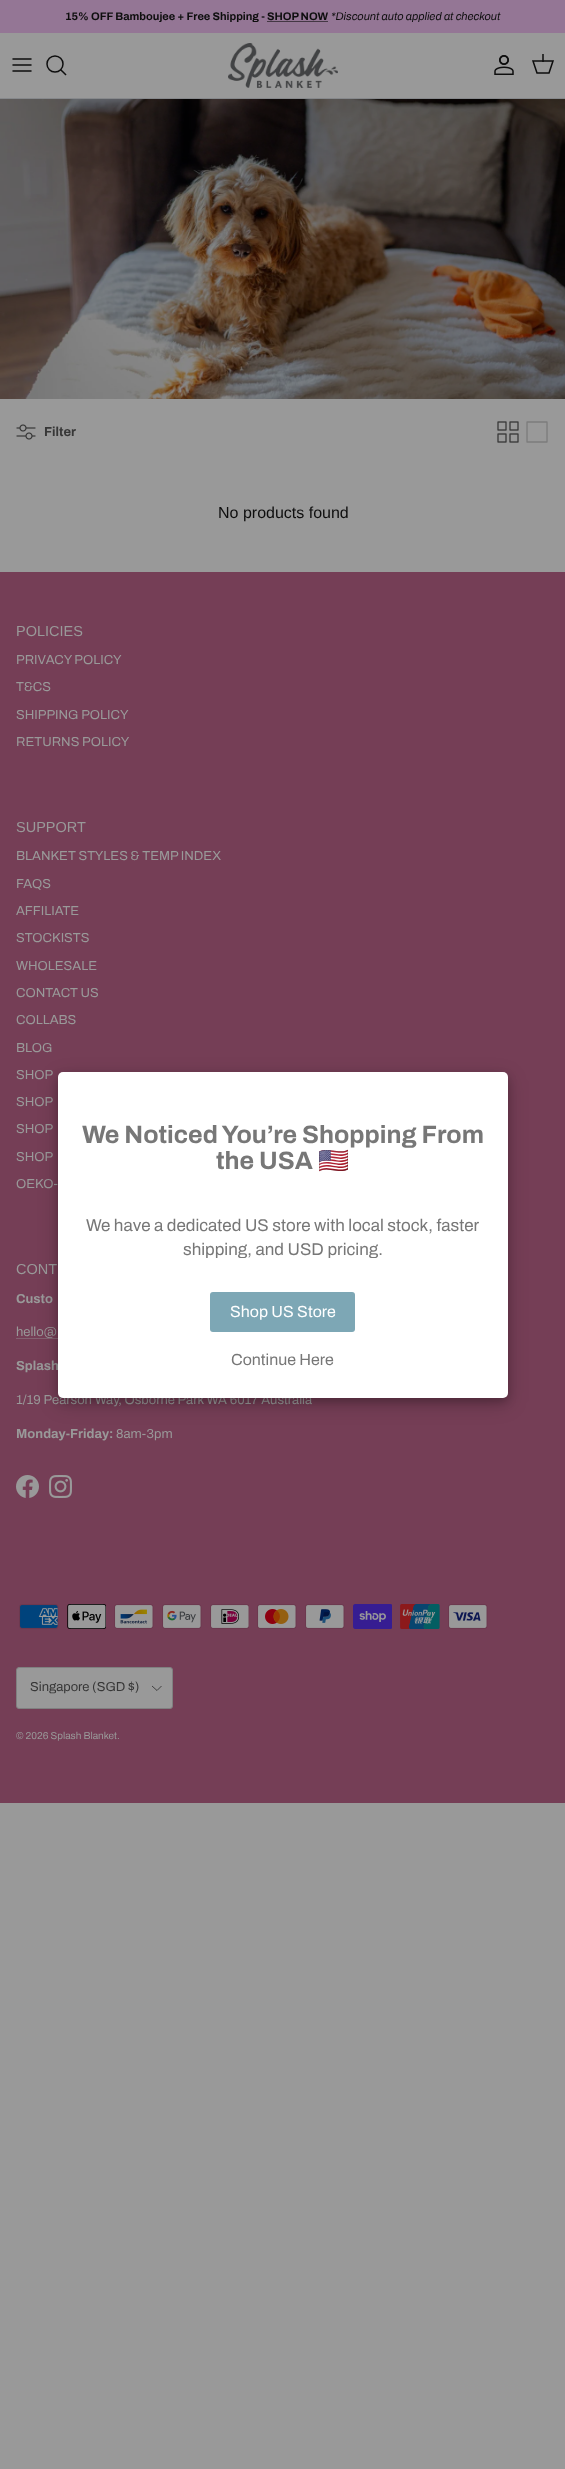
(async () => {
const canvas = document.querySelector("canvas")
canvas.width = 565
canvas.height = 2469
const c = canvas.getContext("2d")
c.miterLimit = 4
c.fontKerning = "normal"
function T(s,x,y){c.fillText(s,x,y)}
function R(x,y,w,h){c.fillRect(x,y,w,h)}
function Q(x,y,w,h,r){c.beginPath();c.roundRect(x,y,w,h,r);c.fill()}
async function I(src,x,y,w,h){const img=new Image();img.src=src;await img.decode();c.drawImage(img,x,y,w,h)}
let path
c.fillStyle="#999"
R(0,0,565,2469)
c.fillStyle="#947695"
R(0,0,565,33)
c.font="bold 11px Archivo"
c.fillStyle="#0e0e0e"
T("15% OFF Bamboujee + Free Shipping - SHOP NOW",65,20)
c.font="italic 11px Archivo"
T("*Discount auto applied at checkout",331,20)
c.fillStyle="#443744"
R(267,21,61,1)
c.fillStyle="#86888b"
R(0,98,565,1)
path = new Path2D("M13 65h18m-18-6h18m-18 12h18")
c.strokeStyle="#0e0e0e"
c.lineWidth=1.5
c.lineCap="round"
c.lineJoin="round"
c.stroke(path)
c.beginPath()
c.arc(55,64,8,0,7)
c.stroke()
path = new Path2D("M61 70l4.5 4.5")
c.lineCap="square"
c.lineJoin="miter"
c.stroke(path)
await I("1.png",228,43,110,45)
await I("2.png",494,55,20,20)
path = new Path2D("M533 61h20l-4 12h-12z")
c.lineCap="butt"
c.stroke(path)
c.fillStyle="#0e0e0ebf"
R(542,54,2,8)
await I("3.png",0,99,565,300)
await I("4.png",16,424,20,16)
c.font="bold 13px Archivo"
c.fillStyle="#373737"
T("Filter",44,436)
await I("5.png",497,421,22,22)
path = new Path2D("M527 422h20v20h-20v-20")
c.strokeStyle="#7c7c7c"
c.lineWidth=1.3
c.lineCap="round"
c.lineJoin="round"
c.stroke(path)
c.font="16px Liberation Sans"
c.fillStyle="#0e0e0e"
T("No products found",218,518)
c.fillStyle="#753e56"
R(0,572,565,1231)
c.font="14.5px Liberation Sans"
c.fillStyle="#999"
T("POLICIES",16,636)
c.font="13px Archivo"
T("PRIVACY POLICY",16,664)
T("T&CS",16,691)
T("SHIPPING POLICY",16,719)
T("RETURNS POLICY",16,746)
c.font="14.5px Liberation Sans"
T("SUPPORT",16,832)
c.font="13px Archivo"
T("BLANKET STYLES & TEMP INDEX",16,860)
T("FAQS",16,888)
T("AFFILIATE",16,915)
T("STOCKISTS",16,942)
T("WHOLESALE",16,970)
T("CONTACT US",16,997)
T("COLLABS",16,1024)
T("BLOG",16,1052)
T("SHOP",16,1079)
T("SHOP",16,1106)
T("SHOP",16,1133)
T("SHOP",16,1161)
T("OEKO-",16,1188)
c.font="14.5px Liberation Sans"
T("CONT",16,1274)
c.font="bold 13px Archivo"
T("Custo",16,1303)
c.font="13px Archivo"
T("hello@",16,1336)
c.fillStyle="#836271"
R(16,1338,42,1)
c.font="bold 13px Archivo"
c.fillStyle="#999"
T("Splash",16,1370)
c.font="13px Archivo"
T("1/19 Pearson Way, Osborne Park WA 6017 Australia",16,1404)
c.font="bold 13px Archivo"
T("Monday-Friday:",16,1438)
c.font="13px Archivo"
T("8am-3pm",116,1438)
await I("6.png",16,1475,23,23)
await I("7.png",49,1475,23,23)
await I("8.png",19,1604,40,25)
await I("9.png",67,1604,39,25)
await I("10.png",114,1604,40,25)
await I("11.png",162,1604,40,25)
await I("12.png",210,1604,39,25)
await I("13.png",257,1604,40,25)
await I("14.png",305,1604,40,25)
await I("15.png",353,1604,39,25)
await I("16.png",400,1604,40,25)
await I("17.png",448,1604,40,25)
c.beginPath()
c.roundRect(16.5,1667.5,156,41,2.5)
c.fill()
c.strokeStyle="#808080"
c.lineWidth=1
c.lineJoin="miter"
c.stroke()
c.fillStyle="#373737"
T("Singapore (SGD $)",30,1691)
path = new Path2D("M161.5 1686l-4.5 4.5l-5-4.5")
c.strokeStyle="#373737"
c.lineWidth=0.9
c.lineCap="butt"
c.stroke(path)
c.font="10px Archivo"
c.fillStyle="#999"
T("© 2026 Splash Blanket.",16,1739)
c.fillStyle="#00000030"
c.filter="blur(10px)"
c.beginPath()
c.roundRect(58,1078,450,326,5)
c.fill()
c.filter="none"
c.fillStyle="#00000033"
c.filter="blur(4px)"
c.beginPath()
c.roundRect(58,1076,450,326,5)
c.fill()
c.filter="none"
c.fillStyle="#fff"
Q(58,1072,450,326,5)
c.font="bold 25px Archivo"
c.fillStyle="#777"
T("We Noticed You’re Shopping From",82,1143)
T("the USA",216,1169)
c.font="bold 25px Noto Color Emoji"
T("🇺🇸",318,1169)
c.font="17px Archivo"
T("We have a dedicated US store with local stock, faster",86,1231)
T("shipping, and USD pricing.",183,1255)
c.fillStyle="#7da7b5"
Q(210,1292,145,40,3)
c.font="16px Archivo"
c.fillStyle="#fff"
T("Shop US Store",230,1317)
c.fillStyle="#777"
T("Continue Here",231,1365)
})()
